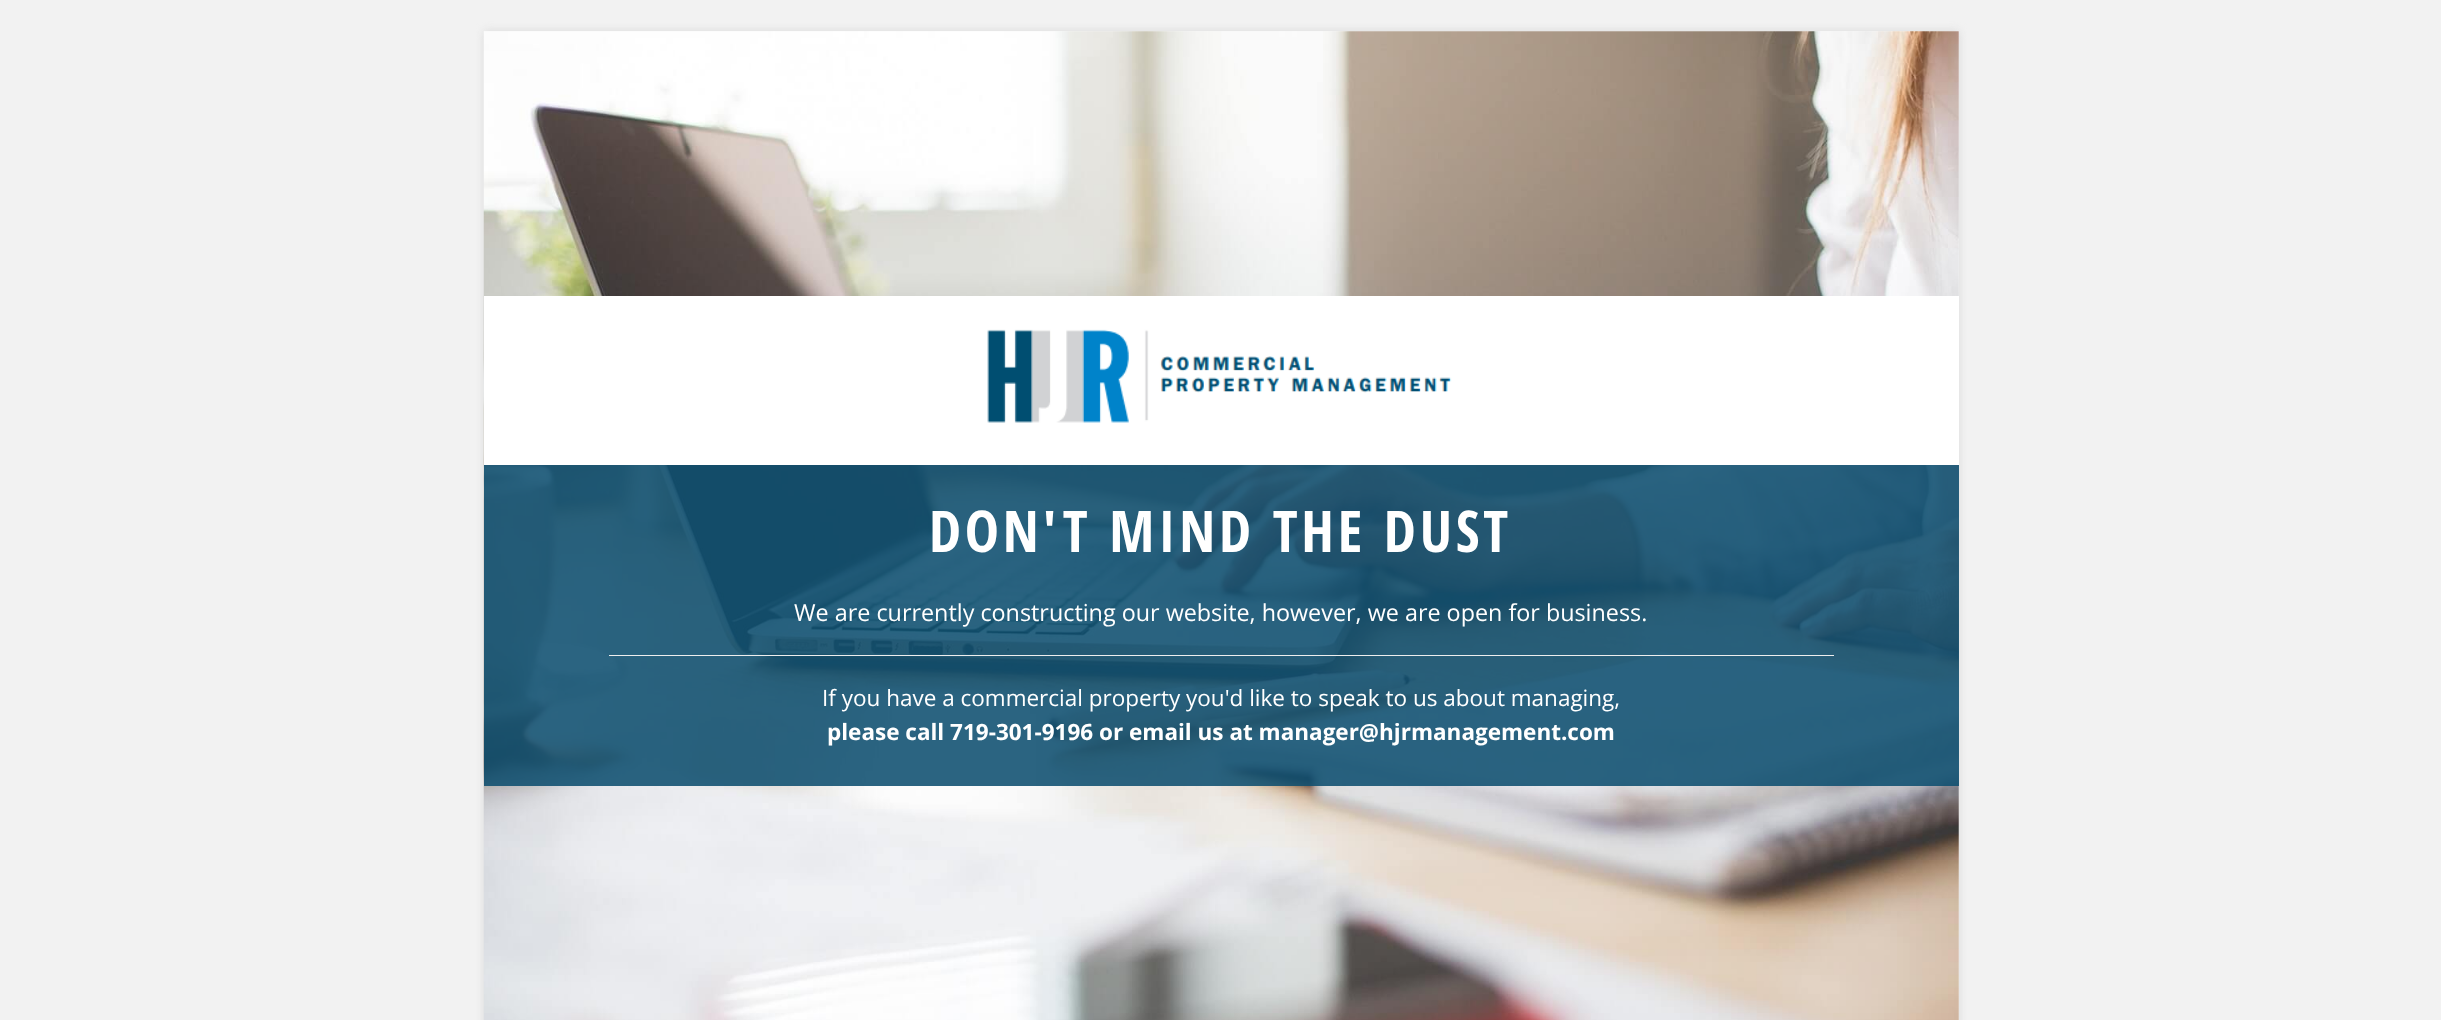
(async () => {
const canvas = document.querySelector("canvas")
canvas.width = 2441
canvas.height = 1020
const c = canvas.getContext("2d")
c.miterLimit = 4
c.fontKerning = "normal"
function T(s,x,y){c.fillText(s,x,y)}
function R(x,y,w,h){c.fillRect(x,y,w,h)}
async function I(src,x,y,w,h){const img=new Image();img.src=src;await img.decode();c.drawImage(img,x,y,w,h)}
c.fillStyle="#f2f2f2"
R(0,0,2441,1020)
c.fillStyle="#d9d9d9"
c.filter="blur(4.5px)"
c.beginPath()
c.rect(484,31,1475,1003)
c.fill()
c.filter="none"
c.fillStyle="#ffffff99"
R(484,31,1475,989)
await I("1.png",483,31,1476,989)
c.fillStyle="#fff"
R(484,296,1475,169)
await I("2.png",987,329,465,94)
c.fillStyle="#0e4e70e0"
R(484,465,1475,321)
c.letterSpacing="3.75px"
c.font="bold 57.5px Open Sans Condensed"
c.fillStyle="#fff"
T("DON'T MIND THE DUST",929,552)
c.letterSpacing="0px"
c.font="23.35px Open Sans"
T("We are currently constructing our website, however, we are open for business.",794,621)
c.fillStyle="#eee"
R(609,655,1225,1)
c.font="22.5px Open Sans"
c.fillStyle="#fff"
T("If you have a commercial property you'd like to speak to us about managing,",822,706)
c.font="bold 22.5px Open Sans"
T("please call 719-301-9196 or email us at manager@hjrmanagement.com",827,740)
})()
